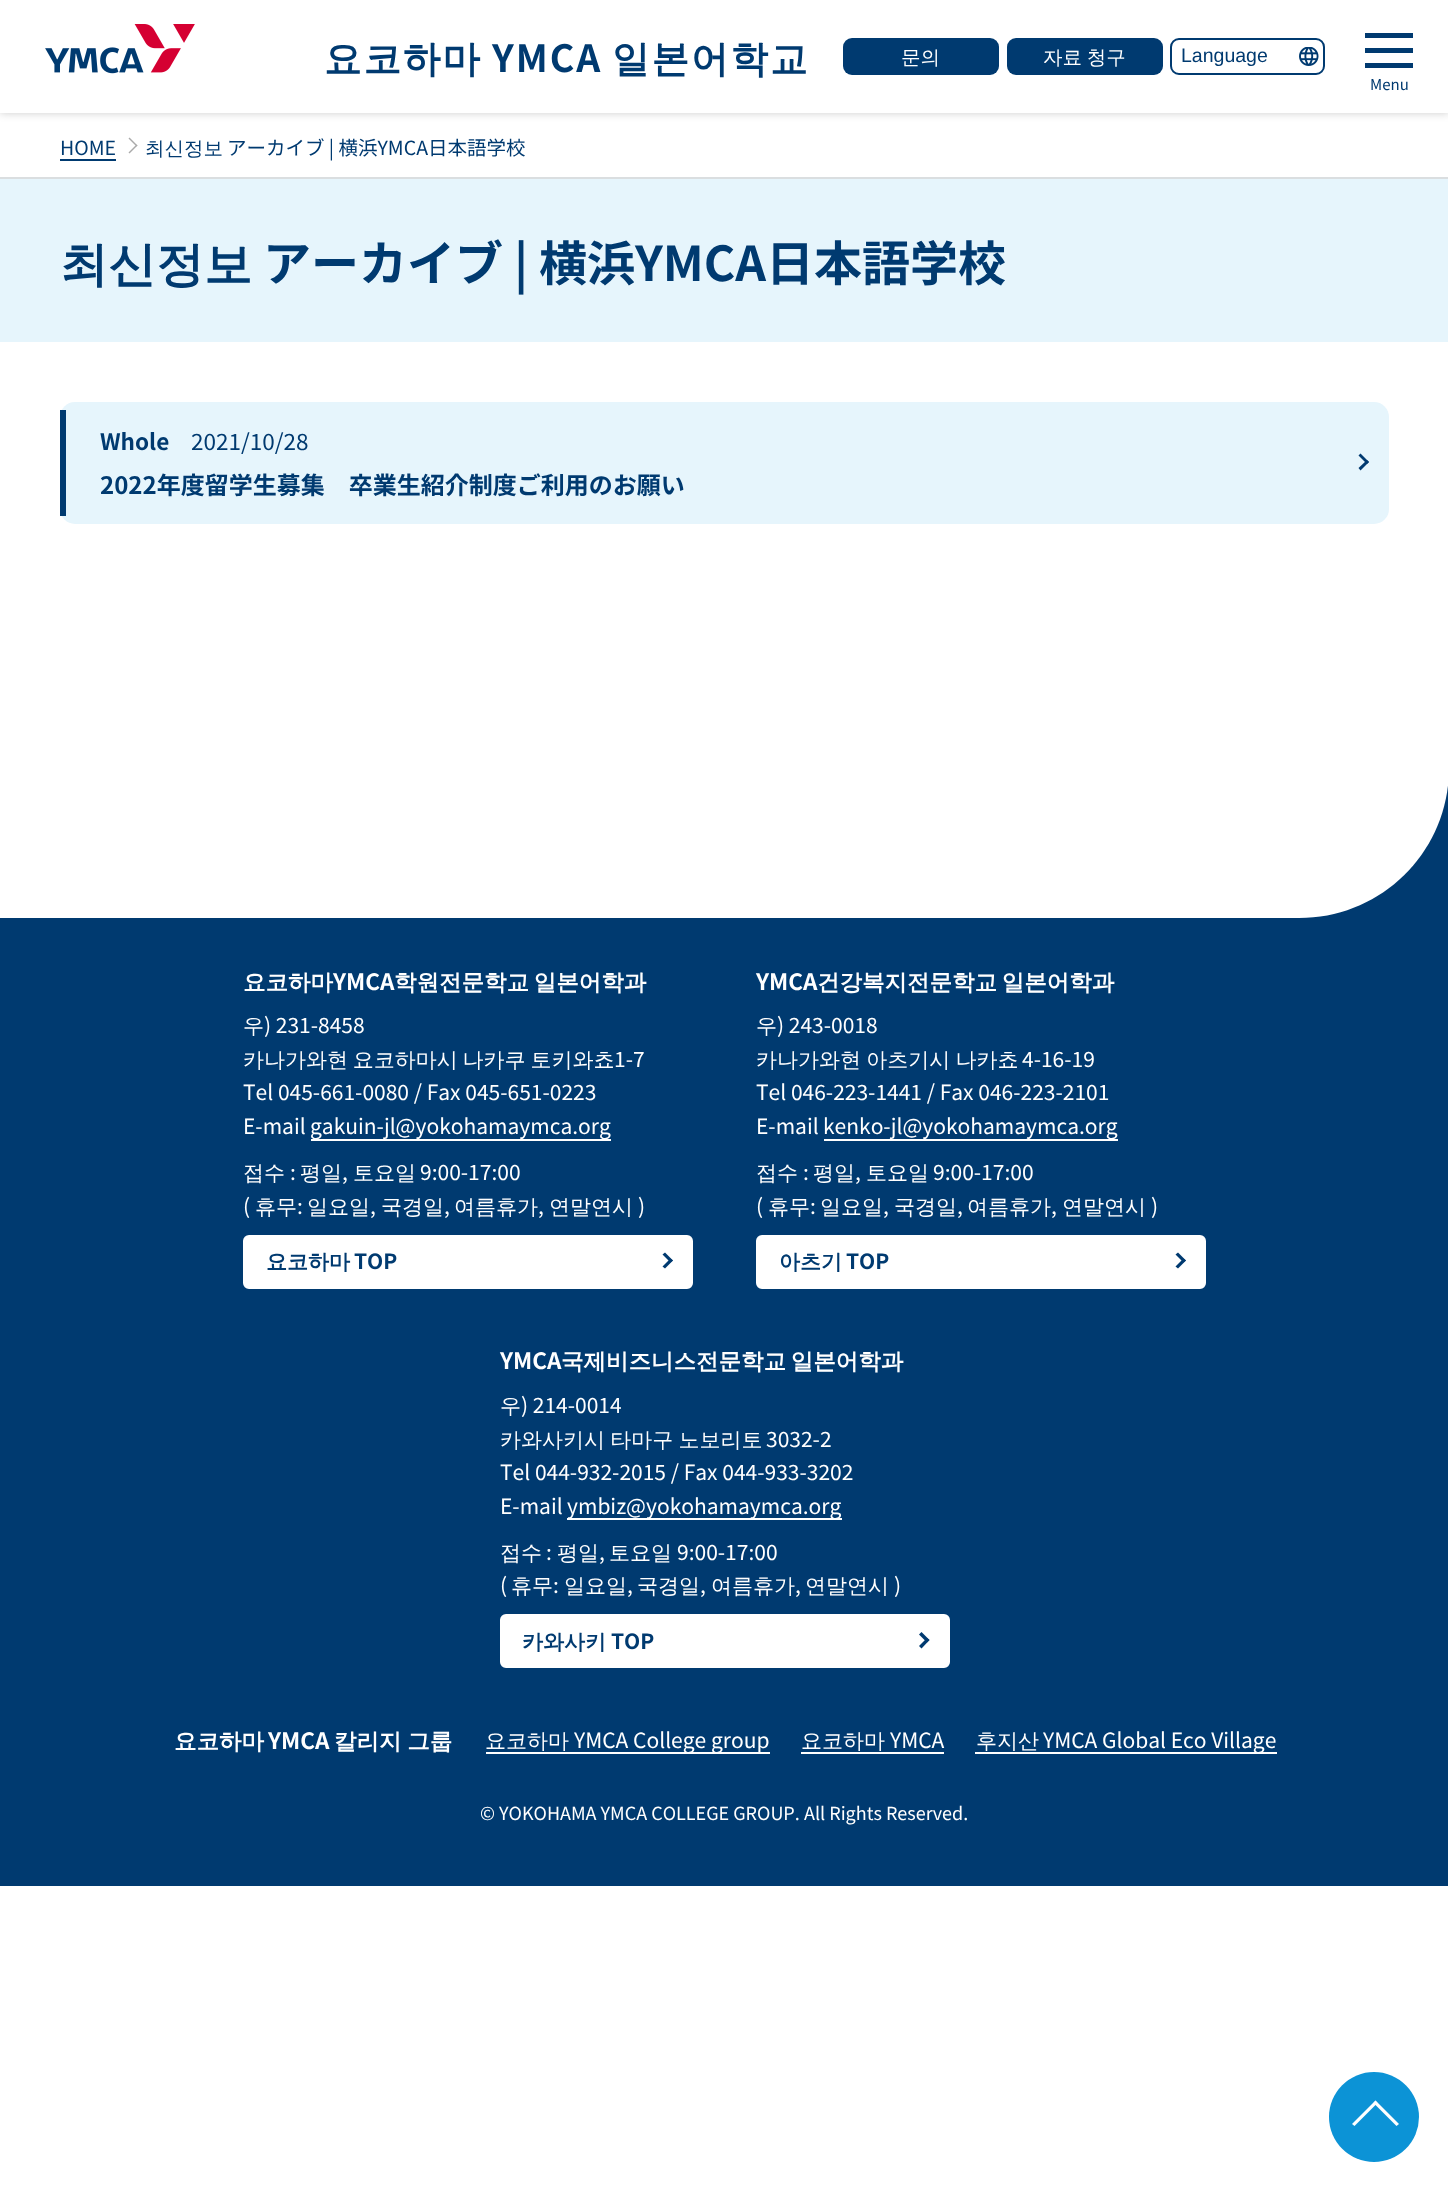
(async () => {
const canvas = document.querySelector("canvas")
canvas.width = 1448
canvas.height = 2191
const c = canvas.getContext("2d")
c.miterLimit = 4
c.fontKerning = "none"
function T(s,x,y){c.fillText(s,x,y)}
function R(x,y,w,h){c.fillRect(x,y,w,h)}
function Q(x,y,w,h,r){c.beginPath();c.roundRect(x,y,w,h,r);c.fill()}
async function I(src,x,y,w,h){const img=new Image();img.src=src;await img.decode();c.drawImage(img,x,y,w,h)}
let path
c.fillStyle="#fff"
R(0,0,1448,2191)
c.fillStyle="#00000033"
c.filter="blur(4.5px)"
c.beginPath()
c.rect(0,0,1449,113)
c.fill()
c.filter="none"
c.fillStyle="#fff"
R(0,0,1448,113)
await I("1.png",45,24,150,50)
c.letterSpacing="2px"
c.font="bold 37.5px WenQuanYi Zen Hei"
c.fillStyle="#003a70"
T("요코하마",324,72)
c.font="bold 37.5px Noto Sans JP"
T("YMCA",492,72)
c.font="bold 37.5px WenQuanYi Zen Hei"
T("일본어학교",612,72)
Q(843,38,156,37,9)
c.letterSpacing="0px"
c.font="500 19.5px WenQuanYi Zen Hei"
c.fillStyle="#fff"
T("문의",901,64)
c.fillStyle="#003a70"
Q(1007,38,156,37,9)
c.wordSpacing="-1px"
c.fillStyle="#fff"
T("자료 청구",1043,64)
await I("2.png",1299,47,20,19)
c.beginPath()
c.roundRect(1171,39,153,35,8)
c.strokeStyle="#003a70"
c.lineWidth=2
c.stroke()
c.wordSpacing="0px"
c.font="19.5px Liberation Sans"
c.fillStyle="#003a70"
T("Language",1181,62)
R(1365,33,48,5)
R(1365,48,48,5)
R(1365,63,48,5)
c.font="15px Noto Sans JP"
T("Menu",1370,90)
c.font="19.5px Noto Sans JP"
T("HOME",60,155)
R(60,159,56,2)
c.fillStyle="#aaa"
path = new Path2D("M129.5 137.5l8 8l-1 1l-8-8z")
c.fill(path)
path = new Path2D("M136.5 144.5l1 1l-8 8l-1-1z")
c.fill(path)
c.font="500 19.5px WenQuanYi Zen Hei"
c.fillStyle="#003a70"
T("최신정보",145,155)
c.font="19.5px Noto Sans JP"
T("アーカイブ | 横浜YMCA日本語学校",227,155)
c.fillStyle="#dadee0"
R(0,177,1448,2)
c.fillStyle="#e6f5fc"
R(0,179,1448,163)
c.font="bold 48px WenQuanYi Zen Hei"
c.fillStyle="#003a70"
T("최신정보",60,281)
c.font="bold 48px Noto Sans JP"
T("アーカイブ | 横浜YMCA日本語学校",263,281)
c.fillStyle="#e6f5fc"
Q(60,402,1329,122,15)
c.fillStyle="#003a70"
R(60,410,6,106)
c.font="bold 22.5px Noto Sans JP"
T("Whole",100,450)
c.font="22.5px Noto Sans JP"
T("2021/10/28",191,450)
path = new Path2D("M1360.5 453.5l8.5 8.5l-2 2l-8.5-8.5z")
c.fill(path)
path = new Path2D("M1367 460l2 2l-8.5 8.5l-2-2.5z")
c.fill(path)
c.font="bold 24px Noto Sans JP"
T("2022年度留学生募集　卒業生紹介制度ご利用のお願い",100,494)
R(0,785,1448,1101)
c.fillStyle="#fff"
path = new Path2D("M0 768h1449c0 83-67 150-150 150h-1299z")
c.fill(path)
c.font="bold 22.5px WenQuanYi Zen Hei"
T("요코하마",243,990)
c.font="bold 22.5px Noto Sans JP"
T("YMCA",333,990)
c.wordSpacing="-2px"
c.font="bold 22.5px WenQuanYi Zen Hei"
T("학원전문학교 일본어학과",394,990)
c.wordSpacing="0px"
c.font="500 21px WenQuanYi Zen Hei"
T("우",243,1033)
c.font="21px Noto Sans JP"
T(") 231-8458",264,1033)
c.wordSpacing="-1.5px"
c.font="500 21px WenQuanYi Zen Hei"
T("카나가와현 요코하마시 나카쿠 토키와쵸",243,1067)
c.wordSpacing="0px"
c.font="21px Noto Sans JP"
T("1-7",614,1067)
T("Tel 045-661-0080 / Fax 045-651-0223",243,1100)
T("E-mail",243,1134)
R(311,1139,300,2)
T("gakuin-jl@yokohamaymca.org",310,1134)
c.font="500 21px WenQuanYi Zen Hei"
T("접수",243,1180)
c.font="21px Noto Sans JP"
T(":",290,1180)
c.font="500 21px WenQuanYi Zen Hei"
T("평일",300,1180)
c.font="21px Noto Sans JP"
T(",",342,1180)
c.font="500 21px WenQuanYi Zen Hei"
T("토요일",353,1180)
c.font="21px Noto Sans JP"
T("9:00-17:00",420,1180)
T("(",243,1214)
c.font="500 21px WenQuanYi Zen Hei"
T("휴무",255,1214)
c.font="21px Noto Sans JP"
T(":",297,1214)
c.font="500 21px WenQuanYi Zen Hei"
T("일요일",307,1214)
c.font="21px Noto Sans JP"
T(",",370,1214)
c.font="500 21px WenQuanYi Zen Hei"
T("국경일",381,1214)
c.font="21px Noto Sans JP"
T(",",444,1214)
c.font="500 21px WenQuanYi Zen Hei"
T("여름휴가",454,1214)
c.font="21px Noto Sans JP"
T(",",538,1214)
c.font="500 21px WenQuanYi Zen Hei"
T("연말연시",549,1214)
c.font="21px Noto Sans JP"
T(")",638,1214)
c.beginPath()
c.roundRect(244,1236,448,52,5)
c.fill()
c.strokeStyle="#fff"
c.stroke()
c.font="bold 21px WenQuanYi Zen Hei"
c.fillStyle="#003a70"
T("요코하마",266,1269)
c.font="bold 21px Noto Sans JP"
T("TOP",354,1269)
path = new Path2D("M665 1252.5l8 8l-2.5 2l-8-8z")
c.fill(path)
path = new Path2D("M670.5 1258.5l2.5 2l-8 8l-2.5-2z")
c.fill(path)
c.font="bold 22.5px Noto Sans JP"
c.fillStyle="#fff"
T("YMCA",756,990)
c.wordSpacing="-2px"
c.font="bold 22.5px WenQuanYi Zen Hei"
T("건강복지전문학교 일본어학과",817,990)
c.wordSpacing="0px"
c.font="500 21px WenQuanYi Zen Hei"
T("우",756,1033)
c.font="21px Noto Sans JP"
T(") 243-0018",777,1033)
c.wordSpacing="-1px"
c.font="500 21px WenQuanYi Zen Hei"
T("카나가와현 아츠기시 나카쵸",756,1067)
c.wordSpacing="0px"
c.font="21px Noto Sans JP"
T("4-16-19",1022,1067)
T("Tel 046-223-1441 / Fax 046-223-2101",756,1100)
T("E-mail",756,1134)
R(824,1139,294,2)
T("kenko-jl@yokohamaymca.org",823,1134)
c.font="500 21px WenQuanYi Zen Hei"
T("접수",756,1180)
c.font="21px Noto Sans JP"
T(":",803,1180)
c.font="500 21px WenQuanYi Zen Hei"
T("평일",813,1180)
c.font="21px Noto Sans JP"
T(",",855,1180)
c.font="500 21px WenQuanYi Zen Hei"
T("토요일",866,1180)
c.font="21px Noto Sans JP"
T("9:00-17:00",933,1180)
T("(",756,1214)
c.font="500 21px WenQuanYi Zen Hei"
T("휴무",768,1214)
c.font="21px Noto Sans JP"
T(":",810,1214)
c.font="500 21px WenQuanYi Zen Hei"
T("일요일",820,1214)
c.font="21px Noto Sans JP"
T(",",883,1214)
c.font="500 21px WenQuanYi Zen Hei"
T("국경일",894,1214)
c.font="21px Noto Sans JP"
T(",",957,1214)
c.font="500 21px WenQuanYi Zen Hei"
T("여름휴가",967,1214)
c.font="21px Noto Sans JP"
T(",",1051,1214)
c.font="500 21px WenQuanYi Zen Hei"
T("연말연시",1062,1214)
c.font="21px Noto Sans JP"
T(")",1151,1214)
c.beginPath()
c.roundRect(757,1236,448,52,5)
c.fill()
c.stroke()
c.font="bold 21px WenQuanYi Zen Hei"
c.fillStyle="#003a70"
T("아츠기",779,1269)
c.font="bold 21px Noto Sans JP"
T("TOP",846,1269)
path = new Path2D("M1178 1252.5l8 8l-2.5 2l-8-8z")
c.fill(path)
path = new Path2D("M1183.5 1258.5l2.5 2l-8 8l-2.5-2z")
c.fill(path)
c.font="bold 22.5px Noto Sans JP"
c.fillStyle="#fff"
T("YMCA",500,1369)
c.wordSpacing="-2px"
c.font="bold 22.5px WenQuanYi Zen Hei"
T("국제비즈니스전문학교 일본어학과",561,1369)
c.wordSpacing="0px"
c.font="500 21px WenQuanYi Zen Hei"
T("우",500,1413)
c.font="21px Noto Sans JP"
T(") 214-0014",521,1413)
c.wordSpacing="-1px"
c.font="500 21px WenQuanYi Zen Hei"
T("카와사키시 타마구 노보리토",500,1447)
c.wordSpacing="0px"
c.font="21px Noto Sans JP"
T("3032-2",766,1447)
T("Tel 044-932-2015 / Fax 044-933-3202",500,1480)
T("E-mail",500,1514)
R(567,1518,275,2)
T("ymbiz@yokohamaymca.org",567,1514)
c.font="500 21px WenQuanYi Zen Hei"
T("접수",500,1560)
c.font="21px Noto Sans JP"
T(":",546,1560)
c.font="500 21px WenQuanYi Zen Hei"
T("평일",557,1560)
c.font="21px Noto Sans JP"
T(",",599,1560)
c.font="500 21px WenQuanYi Zen Hei"
T("토요일",609,1560)
c.font="21px Noto Sans JP"
T("9:00-17:00",677,1560)
T("(",500,1593)
c.font="500 21px WenQuanYi Zen Hei"
T("휴무",511,1593)
c.font="21px Noto Sans JP"
T(":",553,1593)
c.font="500 21px WenQuanYi Zen Hei"
T("일요일",564,1593)
c.font="21px Noto Sans JP"
T(",",627,1593)
c.font="500 21px WenQuanYi Zen Hei"
T("국경일",637,1593)
c.font="21px Noto Sans JP"
T(",",700,1593)
c.font="500 21px WenQuanYi Zen Hei"
T("여름휴가",711,1593)
c.font="21px Noto Sans JP"
T(",",795,1593)
c.font="500 21px WenQuanYi Zen Hei"
T("연말연시",805,1593)
c.font="21px Noto Sans JP"
T(")",894,1593)
c.beginPath()
c.roundRect(501,1615,448,52,5)
c.fill()
c.stroke()
c.font="bold 21px WenQuanYi Zen Hei"
c.fillStyle="#003a70"
T("카와사키",522,1649)
c.font="bold 21px Noto Sans JP"
T("TOP",611,1649)
path = new Path2D("M921.5 1632l8 8l-2.5 2.5l-8-8z")
c.fill(path)
path = new Path2D("M927 1638l2.5 2l-8 8.5l-2.5-2.5z")
c.fill(path)
c.font="bold 22.5px WenQuanYi Zen Hei"
c.fillStyle="#fff"
T("요코하마",174,1749)
c.font="bold 22.5px Noto Sans JP"
T("YMCA",268,1749)
c.wordSpacing="-1px"
c.font="bold 22.5px WenQuanYi Zen Hei"
T("칼리지 그룹",334,1749)
c.wordSpacing="0px"
c.font="500 21px WenQuanYi Zen Hei"
T("요코하마",485,1748)
R(486,1752,284,2)
c.font="21px Noto Sans JP"
T("YMCA College group",574,1748)
c.font="500 21px WenQuanYi Zen Hei"
T("요코하마",801,1748)
R(801,1752,143,2)
c.font="21px Noto Sans JP"
T("YMCA",890,1748)
c.font="500 21px WenQuanYi Zen Hei"
T("후지산",976,1748)
R(975,1752,302,2)
c.font="21px Noto Sans JP"
T("YMCA Global Eco Village",1043,1748)
c.font="18px Noto Sans JP"
T("© YOKOHAMA YMCA COLLEGE GROUP.",480,1820)
T("All Rights Reserved.",804,1820)
c.fillStyle="#0c93d6"
c.beginPath()
c.arc(1374,2117,45,0,7)
c.fill()
c.fillStyle="#fff"
path = new Path2D("M1352 2124l23.5-23.5l2 2.5l-23 23z")
c.fill(path)
path = new Path2D("M1373.5 2103l2-2.5l23.5 23.5l-2.5 2z")
c.fill(path)
})()
